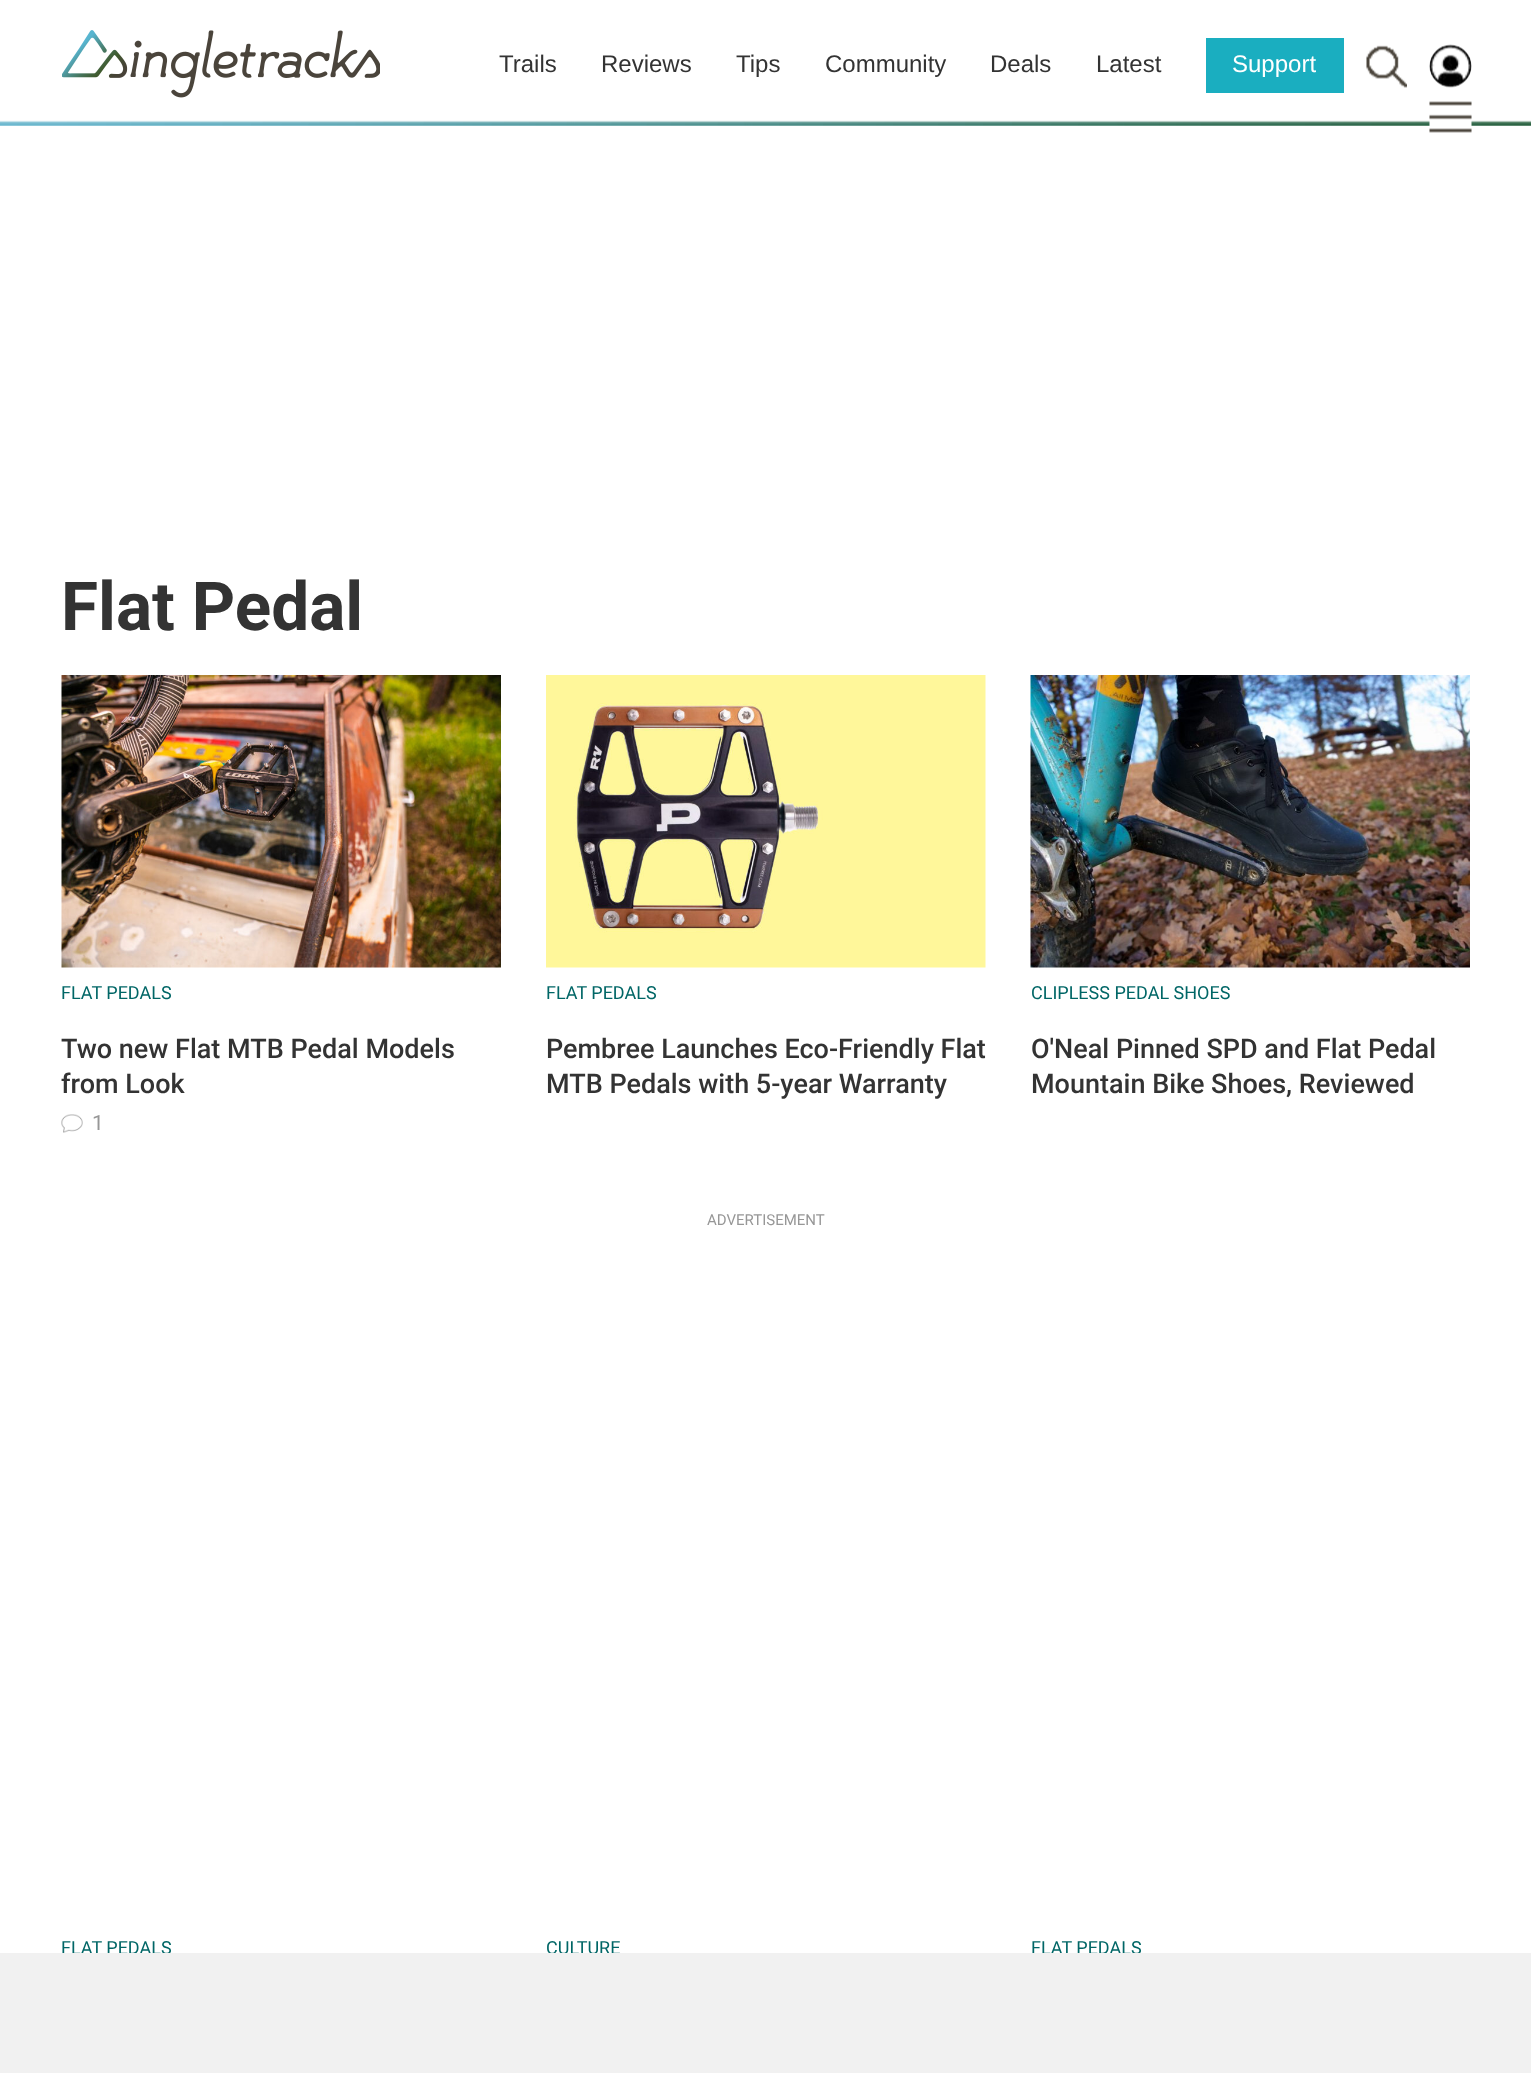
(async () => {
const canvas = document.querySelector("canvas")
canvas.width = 1531
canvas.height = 2073
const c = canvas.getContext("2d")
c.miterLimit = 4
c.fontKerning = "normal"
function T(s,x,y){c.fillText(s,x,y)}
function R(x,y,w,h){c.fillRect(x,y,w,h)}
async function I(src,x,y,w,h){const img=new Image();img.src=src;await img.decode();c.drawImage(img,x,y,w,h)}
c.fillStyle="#fff"
R(0,0,1531,2073)
await I("1.png",0,120,1531,6)
await I("2.png",62,30,318,68)
c.font="24px Liberation Sans"
c.fillStyle="#333"
T("Trails",499,72)
T("Reviews",601,72)
T("Tips",736,72)
T("Community",825,72)
T("Deals",990,72)
T("Latest",1096,72)
c.fillStyle="#1aaec0"
R(1206,38,138,55)
c.fillStyle="#fff"
T("Support",1232,72)
await I("3.png",1366,45,41,43)
await I("4.png",1429,44,43,44)
await I("5.png",1429,101,43,32)
c.font="bold 67.5px Roboto"
c.fillStyle="#333"
T("Flat Pedal",61,630)
await I("6.png",61,675,440,293)
c.font="18px Roboto"
c.fillStyle="#066"
T("FLAT PEDALS",61,999)
c.font="500 27px Roboto"
c.fillStyle="#333"
T("Two new Flat MTB Pedal Models",61,1058)
T("from Look",61,1093)
await I("7.png",61,1114,22,19)
c.font="21px Roboto"
c.fillStyle="#979797"
T("1",92,1130)
await I("8.png",546,675,440,293)
c.font="18px Roboto"
c.fillStyle="#066"
T("FLAT PEDALS",546,999)
c.font="500 27px Roboto"
c.fillStyle="#333"
T("Pembree Launches Eco-Friendly Flat",546,1058)
T("MTB Pedals with 5-year Warranty",546,1093)
await I("9.png",1030,675,440,293)
c.font="18px Roboto"
c.fillStyle="#066"
T("CLIPLESS PEDAL SHOES",1031,999)
c.font="500 27px Roboto"
c.fillStyle="#333"
T("O'Neal Pinned SPD and Flat Pedal",1031,1058)
T("Mountain Bike Shoes, Reviewed",1031,1093)
c.font="15px Roboto"
c.fillStyle="#979797"
T("ADVERTISEMENT",707,1225)
c.font="18px Roboto"
c.fillStyle="#066"
T("FLAT PEDALS",61,1954)
T("CULTURE",546,1954)
T("FLAT PEDALS",1031,1954)
c.fillStyle="#f1f1f1"
R(0,1953,1531,120)
})()
